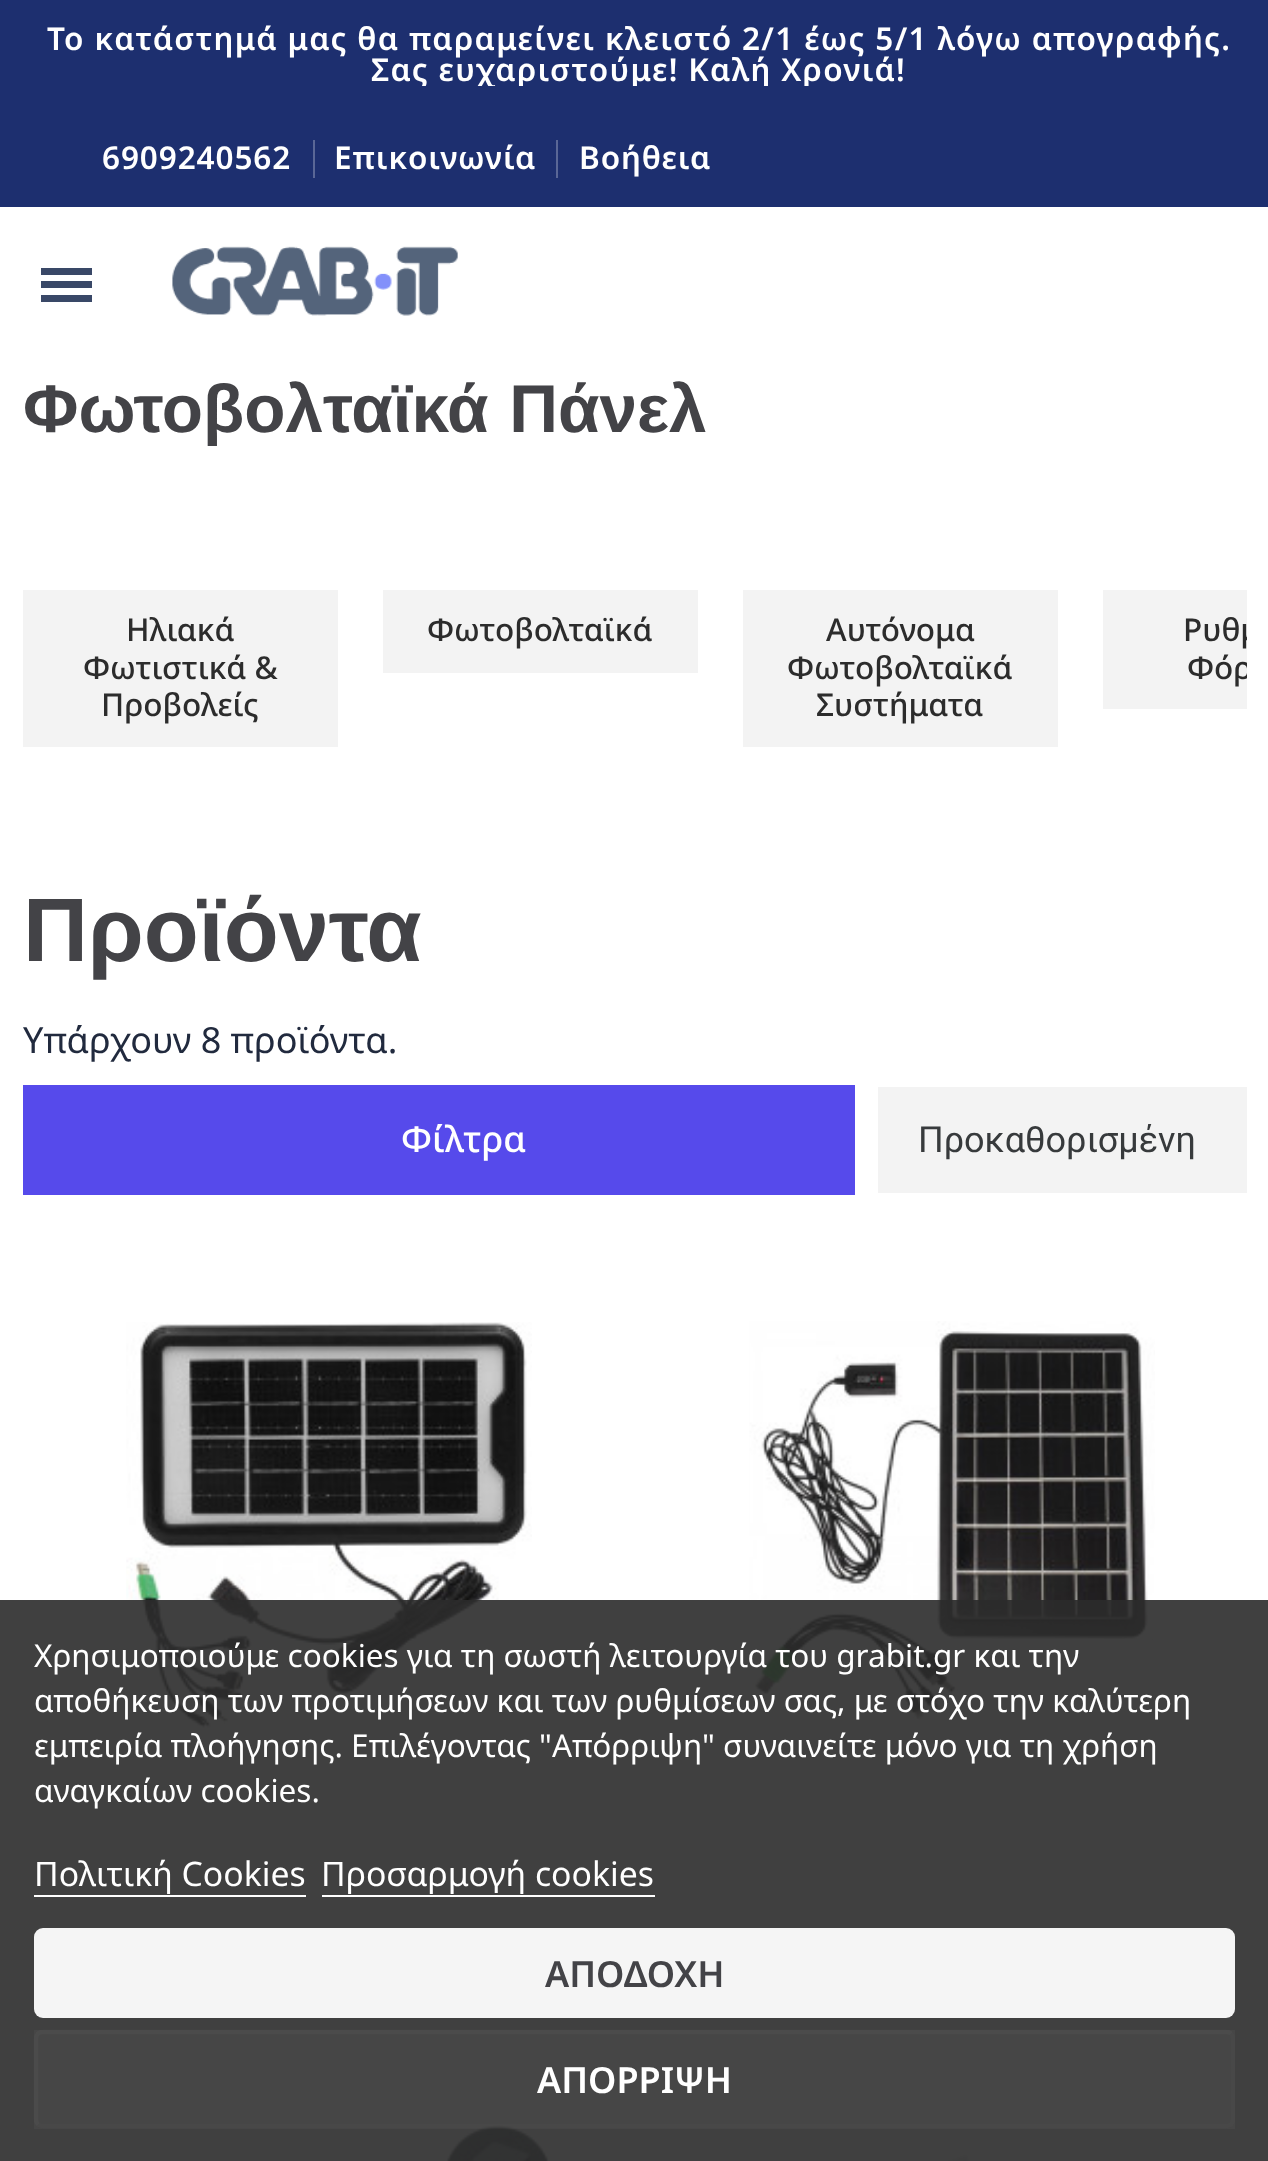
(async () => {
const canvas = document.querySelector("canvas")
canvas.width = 1268
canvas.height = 2161
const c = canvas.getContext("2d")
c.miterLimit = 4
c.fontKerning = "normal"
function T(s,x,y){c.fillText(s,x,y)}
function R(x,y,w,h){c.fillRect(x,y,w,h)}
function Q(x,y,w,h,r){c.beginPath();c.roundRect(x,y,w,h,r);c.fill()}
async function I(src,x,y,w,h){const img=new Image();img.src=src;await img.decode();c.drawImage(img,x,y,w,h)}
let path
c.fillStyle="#fff"
R(0,0,1268,2161)
c.fillStyle="#1d2f6f"
R(0,0,1268,207)
c.letterSpacing="1.35px"
c.font="600 31.5px Noto Sans"
c.fillStyle="#fff"
T("Το κατάστημά μας θα παραμείνει κλειστό 2/1 έως 5/1 λόγω απογραφής.",47,50)
c.save()
c.beginPath()
c.rect(32,23,1215,63)
c.clip()
T("Σας ευχαριστούμε! Καλή Χρονιά!",371,81)
c.restore()
c.letterSpacing="0.9px"
T("6909240562",102,169)
c.fillStyle="#5a6796"
R(313,140,2,38)
c.fillStyle="#fff"
T("Επικοινωνία",334,169)
c.fillStyle="#5a6796"
R(556,140,2,38)
c.fillStyle="#fff"
T("Βοήθεια",579,169)
c.fillStyle="#394867"
R(41,281,51,7)
R(41,268,51,7)
R(41,295,51,7)
await I("1.png",172,246,286,70)
c.letterSpacing="0px"
c.wordSpacing="2px"
c.font="bold 67.5px Liberation Sans"
c.fillStyle="#434347"
T("Φωτοβολταϊκά Πάνελ",23,432)
c.fillStyle="#f3f3f3"
R(23,590,315,157)
c.wordSpacing="0px"
c.font="500 31.5px Noto Sans"
c.fillStyle="#2c2c2c"
T("Ηλιακά",126,641)
T("Φωτιστικά &",83,679)
T("Προβολείς",101,716)
c.fillStyle="#f3f3f3"
R(383,590,315,83)
c.fillStyle="#2c2c2c"
T("Φωτοβολταϊκά",427,641)
c.fillStyle="#f3f3f3"
R(743,590,315,157)
c.fillStyle="#2c2c2c"
T("Αυτόνομα",826,641)
T("Φωτοβολταϊκά",787,679)
T("Συστήματα",816,716)
c.fillStyle="#f3f3f3"
R(1103,590,144,119)
c.save()
c.beginPath()
c.rect(23,567,1224,180)
c.clip()
c.fillStyle="#2c2c2c"
T("Ρυθμ",1183,641)
T("Φόρ",1187,679)
c.restore()
c.font="bold 90px Liberation Sans"
c.fillStyle="#434347"
T("Προϊόντα",23,961)
c.font="36px Noto Sans"
c.fillStyle="#212a3e"
T("Υπάρχουν 8 προϊόντα.",23,1053)
c.fillStyle="#564aeb"
R(23,1085,832,110)
c.font="500 36px Noto Sans"
c.fillStyle="#fff"
T("Φίλτρα",401,1152)
c.fillStyle="#f3f3f3"
R(878,1087,369,106)
c.font="36px Roboto"
c.fillStyle="#373a3c"
T("Προκαθορισμένη",918,1152)
await I("2.png",126,1322,406,406)
await I("3.png",749,1321,406,406)
await I("4.png",445,2123,114,38)
await I("5.png",946,2154,24,7)
c.fillStyle="#2b2b2be6"
R(0,1600,1268,561)
c.font="31.5px Noto Sans"
c.fillStyle="#fff"
T("Χρησιμοποιούμε cookies για τη σωστή λειτουργία του grabit.gr και την",34,1667)
T("αποθήκευση των προτιμήσεων και των ρυθμίσεων σας, με στόχο την καλύτερη",34,1712)
T("εμπειρία πλοήγησης. Επιλέγοντας \"Απόρριψη\" συναινείτε μόνο για τη χρήση",34,1757)
T("αναγκαίων cookies.",34,1802)
c.font="33.75px Noto Sans"
T("Πολιτική Cookies",34,1886)
R(34,1895,272,2)
T("Προσαρμογή cookies",321,1886)
R(322,1895,333,2)
c.fillStyle="#f5f5f5"
Q(34,1928,1201,90,9)
c.font="600 36px Noto Sans"
c.fillStyle="#434347"
T("ΑΠΟΔΟΧΗ",545,1987)
c.fillStyle="#ffffff08"
R(34,2030,1201,99)
path = new Path2D("M1231 2033.5c1.5 1.5 2 3 2 5v81c0 2-.5 3.5-2 5c-1 1-3 1.5-5 1.5h-1183c-2 0-4-.5-5-1.5")
c.strokeStyle="#aaaaaa08"
c.lineWidth=4.5
c.stroke(path)
path = new Path2D("M38 2124.5c-1.5-1.5-2-3-2-5v-81c0-2 .5-3.5 2-5c1-1 3-1.5 5-1.5h1183c2 0 4 .5 5 1.5")
c.strokeStyle="#ffffff08"
c.stroke(path)
c.fillStyle="#fff"
T("ΑΠΟΡΡΙΨΗ",537,2093)
})()
